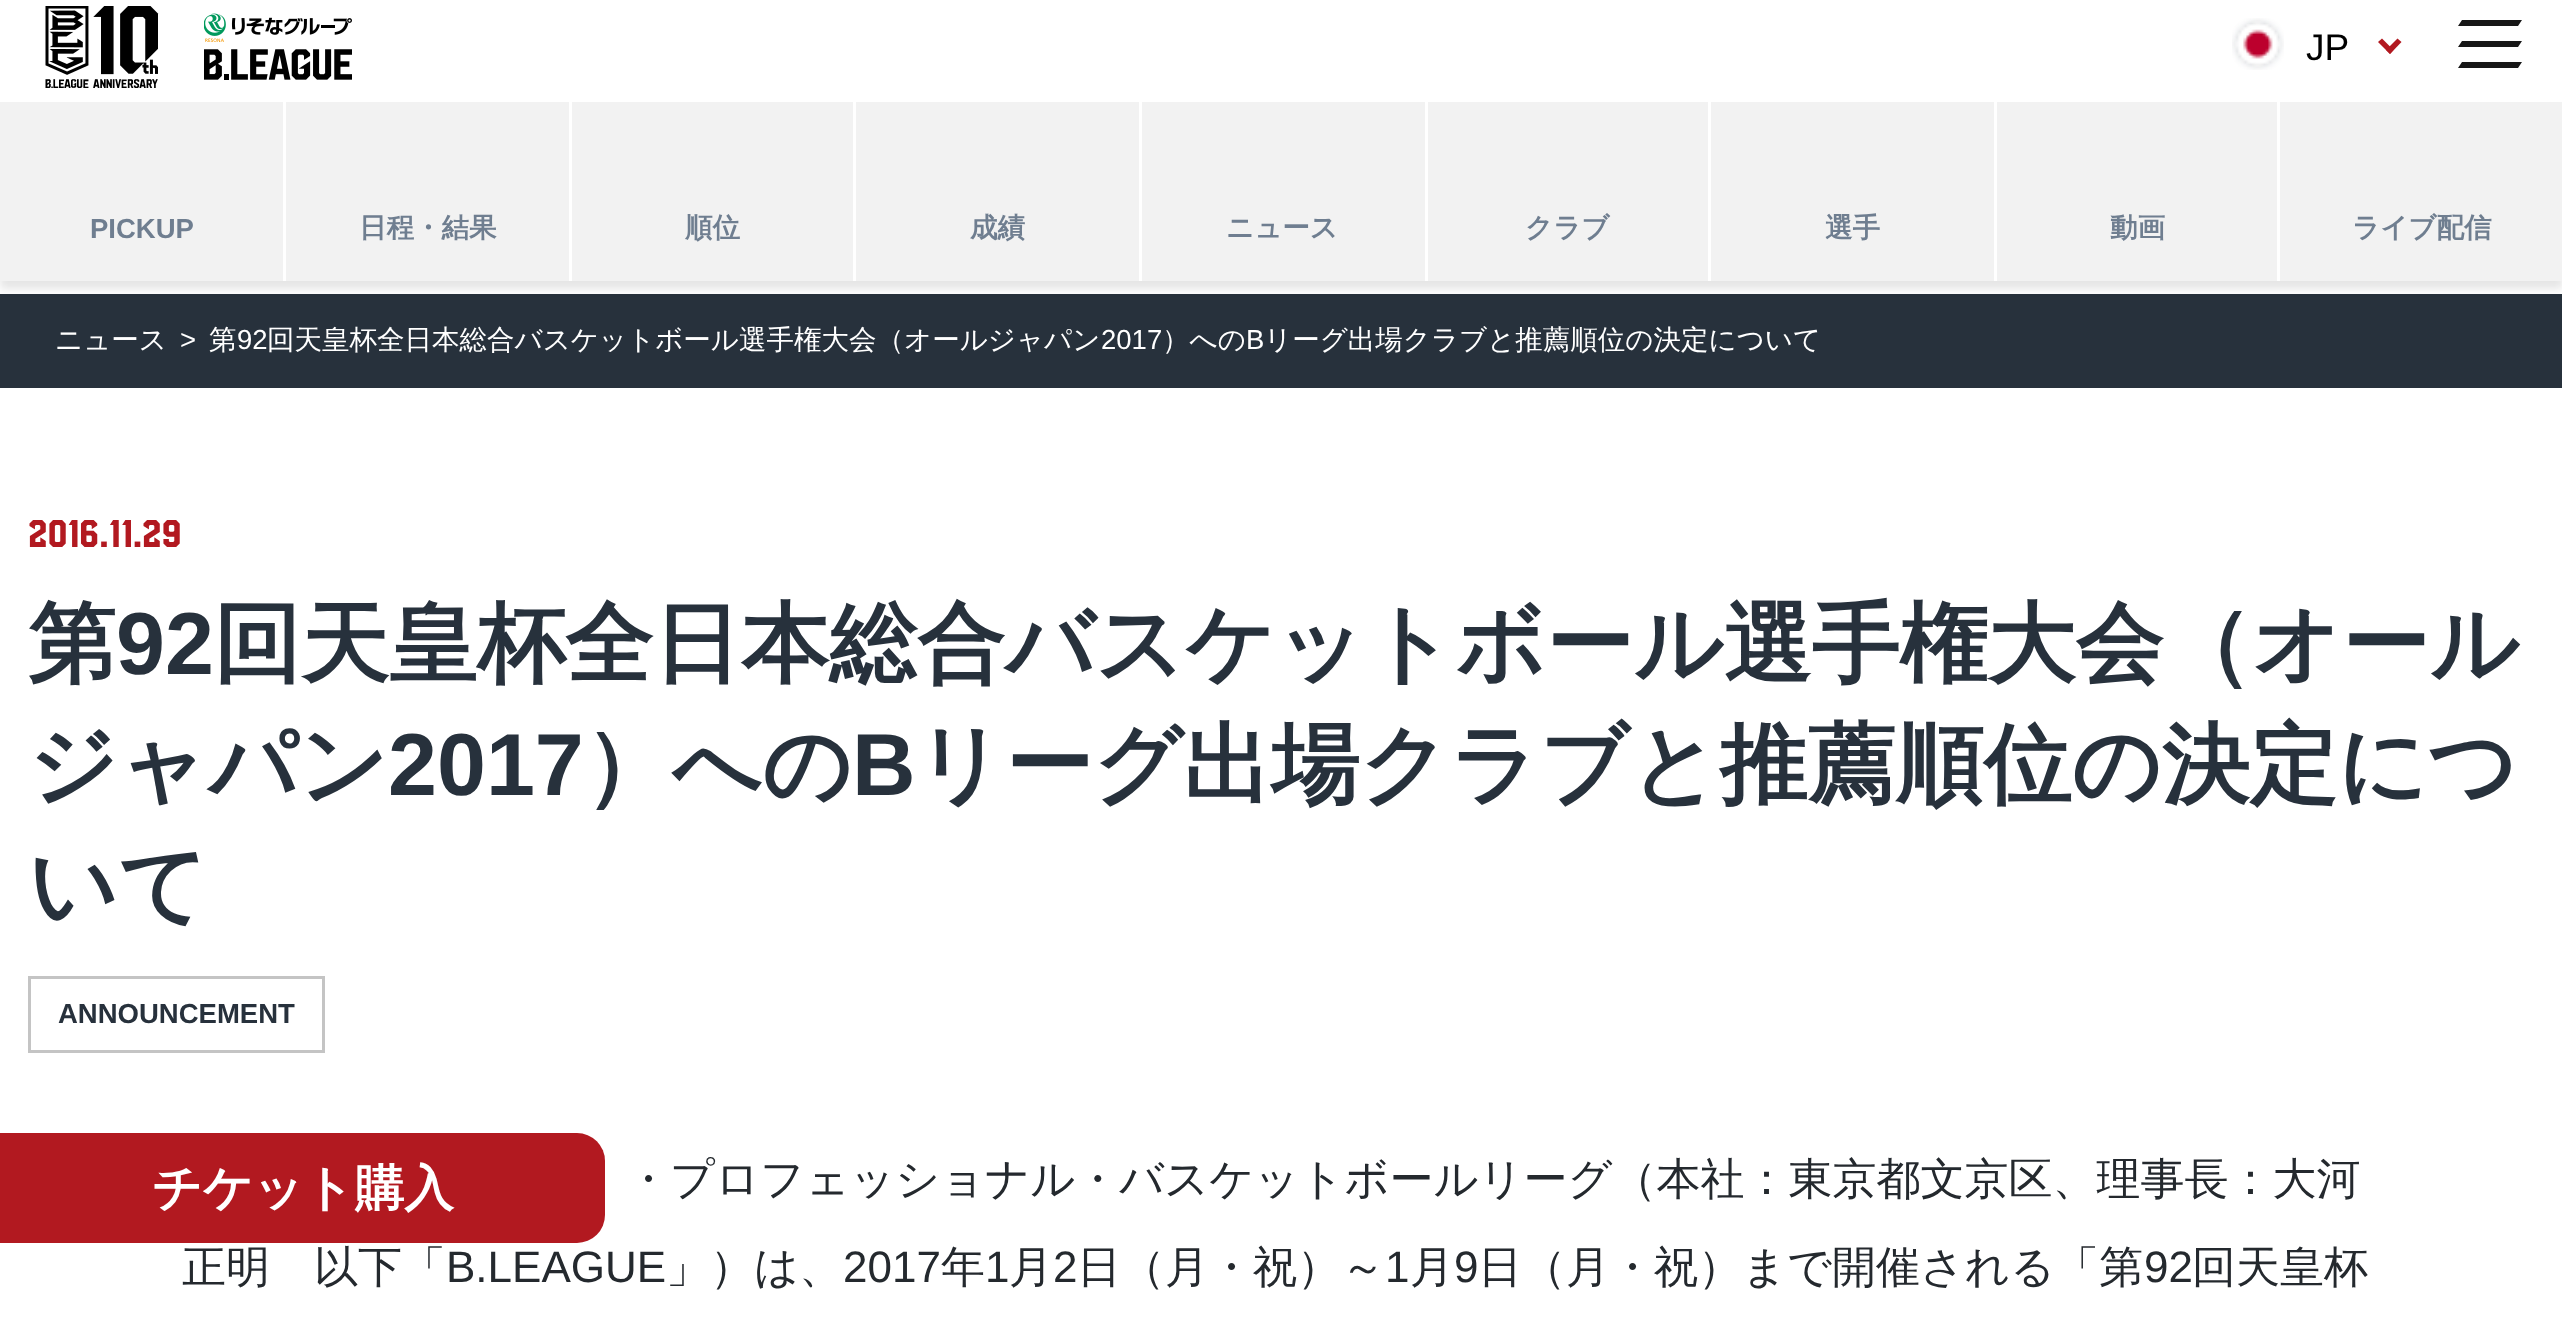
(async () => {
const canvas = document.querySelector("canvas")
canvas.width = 2562
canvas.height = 1324
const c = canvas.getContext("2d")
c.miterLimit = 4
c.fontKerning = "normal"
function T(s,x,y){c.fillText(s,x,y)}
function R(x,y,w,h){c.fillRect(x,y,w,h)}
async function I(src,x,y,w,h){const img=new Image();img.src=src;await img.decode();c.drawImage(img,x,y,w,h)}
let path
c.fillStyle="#fff"
R(0,0,2562,1324)
await I("1.png",45,6,114,82)
await I("2.png",204,13,148,67)
await I("3.png",2232,18,52,52)
c.font="37px Liberation Sans"
c.fillStyle="#000"
T("JP",2306,60)
c.fillStyle="#b21920"
path = new Path2D("M2397.5 38.5l4 3.5l-11.5 12l-4-4z")
c.fill(path)
path = new Path2D("M2382 38.5l11.5 11.5l-3.5 4l-12-12z")
c.fill(path)
c.fillStyle="#171717"
path = new Path2D("M2462 20h60l-4 6h-60zm0 21h60l-4 6h-60zm0 21h60l-4 6h-60z")
c.fill(path)
c.fillStyle="#27313c"
R(0,294,2562,94)
c.fillStyle="#0000001a"
c.filter="blur(4px)"
c.beginPath()
c.rect(0,110,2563,179)
c.fill()
c.filter="none"
c.fillStyle="#f2f2f2"
R(0,102,283,179)
c.font="bold 27.5px Liberation Sans"
c.fillStyle="#6f7e90"
T("PICKUP",90,238)
c.fillStyle="#f2f2f2"
R(286,102,283,179)
c.fillStyle="#fff"
R(283,102,3,179)
c.font="bold 27.5px WenQuanYi Zen Hei"
c.fillStyle="#6f7e90"
T("日程・結果",359,237)
c.fillStyle="#f2f2f2"
R(572,102,281,179)
c.fillStyle="#fff"
R(569,102,3,179)
c.fillStyle="#6f7e90"
T("順位",685,237)
c.fillStyle="#f2f2f2"
R(856,102,283,179)
c.fillStyle="#fff"
R(853,102,3,179)
c.fillStyle="#6f7e90"
T("成績",970,237)
c.fillStyle="#f2f2f2"
R(1142,102,283,179)
c.fillStyle="#fff"
R(1139,102,3,179)
c.fillStyle="#6f7e90"
T("ニュース",1226,237)
c.fillStyle="#f2f2f2"
R(1428,102,280,179)
c.fillStyle="#fff"
R(1425,102,3,179)
c.fillStyle="#6f7e90"
T("クラブ",1525,237)
c.fillStyle="#f2f2f2"
R(1711,102,283,179)
c.fillStyle="#fff"
R(1708,102,3,179)
c.fillStyle="#6f7e90"
T("選手",1825,237)
c.fillStyle="#f2f2f2"
R(1997,102,280,179)
c.fillStyle="#fff"
R(1994,102,3,179)
c.fillStyle="#6f7e90"
T("動画",2110,237)
c.fillStyle="#f2f2f2"
R(2280,102,282,179)
c.fillStyle="#fff"
R(2277,102,3,179)
c.fillStyle="#6f7e90"
T("ライブ配信",2352,237)
c.font="500 27.5px WenQuanYi Zen Hei"
c.fillStyle="#fff"
T("ニュース",55,349)
c.font="27.5px Liberation Sans"
T(">",180,349)
c.font="500 27.5px WenQuanYi Zen Hei"
T("第",209,349)
c.font="27.5px Liberation Sans"
T("92",237,349)
c.font="500 27.5px WenQuanYi Zen Hei"
T("回天皇杯全日本総合バスケットボール選手権大会（オールジャパン",267,349)
c.font="27.5px Liberation Sans"
T("2017",1101,349)
c.font="500 27.5px WenQuanYi Zen Hei"
T("）への",1162,349)
c.font="27.5px Liberation Sans"
T("B",1246,349)
c.font="500 27.5px WenQuanYi Zen Hei"
T("リーグ出場クラブと推薦順位の決定について",1264,349)
c.font="bold 38.5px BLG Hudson"
c.fillStyle="#b21920"
T("2016.11.29",28,547)
c.font="bold 88px WenQuanYi Zen Hei"
c.fillStyle="#27313c"
T("第",28,674)
c.font="bold 88px Liberation Sans"
T("92",116,674)
c.font="bold 88px WenQuanYi Zen Hei"
T("回天皇杯全日本総合バスケットボール選手権大会（オール",213,674)
T("ジャパン",28,795)
c.font="bold 88px Liberation Sans"
T("2017",388,795)
c.font="bold 88px WenQuanYi Zen Hei"
T("）への",584,795)
c.font="bold 88px Liberation Sans"
T("B",852,795)
c.font="bold 88px WenQuanYi Zen Hei"
T("リーグ出場クラブと推薦順位の決定につ",915,795)
T("いて",28,916)
c.strokeStyle="#c4c4c4"
c.lineWidth=3
c.strokeRect(29.5,977.5,294,74)
c.font="bold 27.5px Liberation Sans"
T("ANNOUNCEMENT",58,1023)
c.font="500 44px WenQuanYi Zen Hei"
c.fillStyle="#24292e"
T("・プロフェッショナル・バスケットボールリーグ（本社：東京都文京区、理事長：大河",626,1194)
T("正明　以下「",182,1282)
c.font="44px Liberation Sans"
T("B.LEAGUE",446,1282)
c.font="500 44px WenQuanYi Zen Hei"
T("」）は、",666,1282)
c.font="44px Liberation Sans"
T("2017",843,1282)
c.font="500 44px WenQuanYi Zen Hei"
T("年",941,1282)
c.font="44px Liberation Sans"
T("1",985,1282)
c.font="500 44px WenQuanYi Zen Hei"
T("月",1009,1282)
c.font="44px Liberation Sans"
T("2",1053,1282)
c.font="500 44px WenQuanYi Zen Hei"
T("日（月・祝）～",1077,1282)
c.font="44px Liberation Sans"
T("1",1385,1282)
c.font="500 44px WenQuanYi Zen Hei"
T("月",1410,1282)
c.font="44px Liberation Sans"
T("9",1454,1282)
c.font="500 44px WenQuanYi Zen Hei"
T("日（月・祝）まで開催される「第",1478,1282)
c.font="44px Liberation Sans"
T("92",2144,1282)
c.font="500 44px WenQuanYi Zen Hei"
T("回天皇杯",2192,1282)
c.fillStyle="#b21920"
c.beginPath()
c.roundRect(0,1133,605,110,[0,28,28,0])
c.fill()
c.font="bold 49.5px WenQuanYi Zen Hei"
c.fillStyle="#fff"
T("チケット購入",152,1205)
})()
